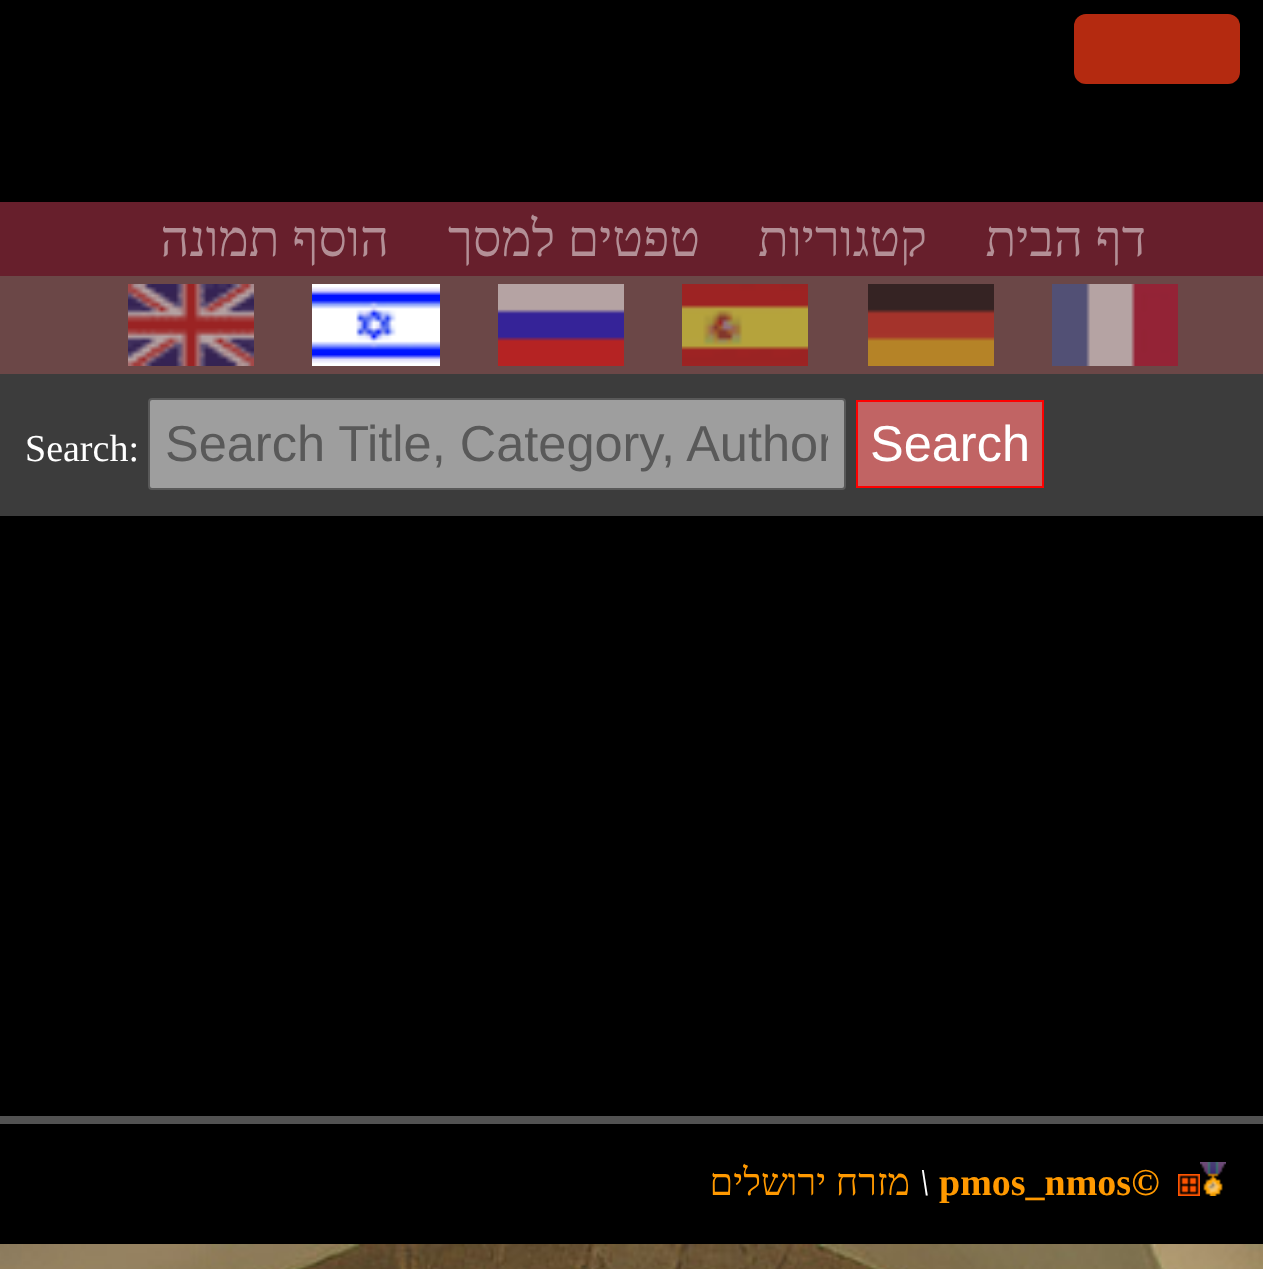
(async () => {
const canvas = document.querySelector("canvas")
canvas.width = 1263
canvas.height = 1269
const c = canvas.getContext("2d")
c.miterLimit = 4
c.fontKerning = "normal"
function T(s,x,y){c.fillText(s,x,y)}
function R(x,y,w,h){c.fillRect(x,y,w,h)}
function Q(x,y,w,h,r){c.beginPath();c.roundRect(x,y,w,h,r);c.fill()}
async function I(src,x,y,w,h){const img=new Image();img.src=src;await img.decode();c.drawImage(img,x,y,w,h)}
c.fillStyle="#000"
R(0,0,1263,1269)
c.fillStyle="#b42a10"
Q(1074,14,166,70,12)
c.fillStyle="#671f2c"
R(0,202,1263,74)
c.direction="rtl"
c.font="50.5px Liberation Serif"
c.fillStyle="#b38f96"
T("הוסף תמונה",389,256)
T("טפטים למסך",700,256)
T("קטגוריות",927,256)
T("דף הבית",1146,256)
c.fillStyle="#6b4747"
R(0,276,1263,98)
await I("1.png",128,284,126,82)
await I("2.png",312,284,128,82)
await I("3.png",498,284,126,82)
await I("4.png",682,284,126,82)
await I("5.png",868,284,126,82)
await I("6.png",1052,284,126,82)
c.fillStyle="#3c3c3c"
R(0,374,1263,142)
c.direction="ltr"
c.font="38px Liberation Serif"
c.fillStyle="#fff"
T("Search:",25,461)
c.fillStyle="#9e9e9e"
c.beginPath()
c.roundRect(149,399,696,90,3)
c.fill()
c.strokeStyle="#595959"
c.lineWidth=2
c.stroke()
c.save()
c.beginPath()
c.rect(164,416,664,58)
c.clip()
c.font="50.5px Liberation Sans"
c.fillStyle="#595959"
T("Search Title, Category, Author",165,461)
c.restore()
c.fillStyle="#c16464"
c.beginPath()
c.rect(857,401,186,86)
c.fill()
c.strokeStyle="#f00"
c.stroke()
c.font="50.5px Liberation Sans"
c.fillStyle="#fff"
T("Search",870,461)
c.fillStyle="#525252"
R(0,1116,1263,8)
c.direction="rtl"
c.font="38px Liberation Serif"
c.fillStyle="#f90"
T("מזרח ירושלים",910,1195)
c.direction="ltr"
c.font="italic 38px Liberation Serif"
c.fillStyle="#fff"
T("\\",919,1195)
c.font="bold 38px Liberation Serif"
c.fillStyle="#f90"
T("pmos_nmos©",939,1195)
await I("7.png",1178,1174,22,22)
await I("8.png",1200,1162,26,34)
await I("9.png",0,1244,1263,25)
})()
